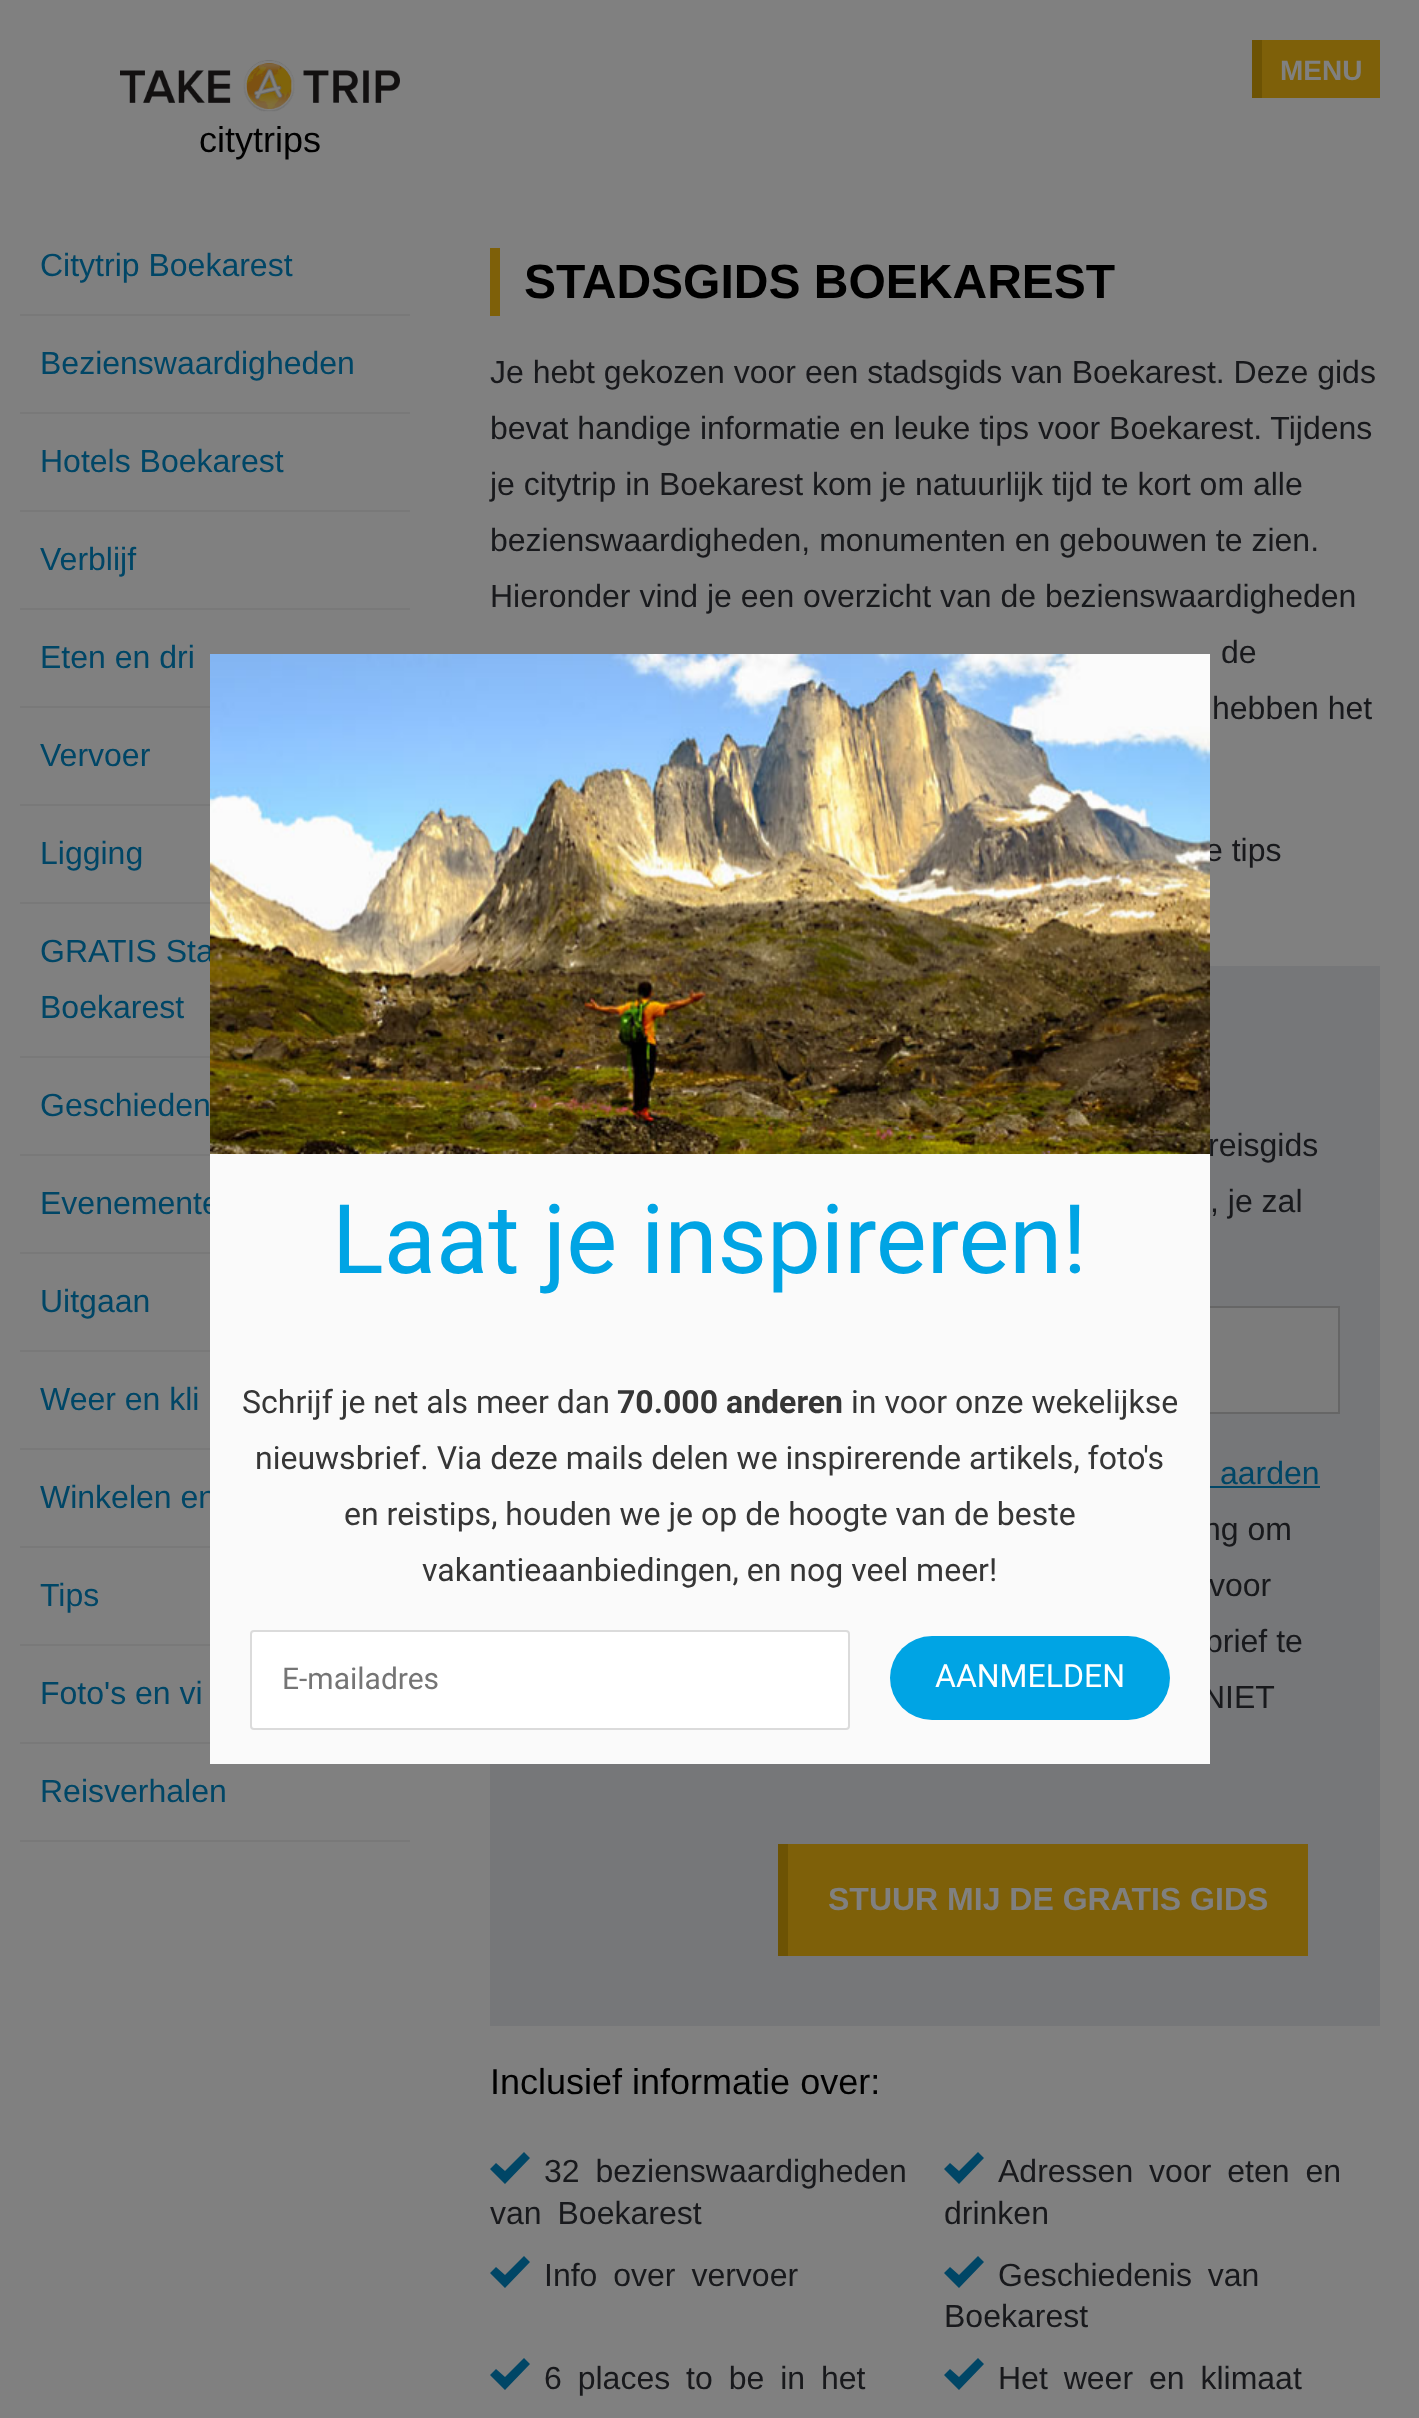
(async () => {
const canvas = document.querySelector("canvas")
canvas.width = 1419
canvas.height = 2418
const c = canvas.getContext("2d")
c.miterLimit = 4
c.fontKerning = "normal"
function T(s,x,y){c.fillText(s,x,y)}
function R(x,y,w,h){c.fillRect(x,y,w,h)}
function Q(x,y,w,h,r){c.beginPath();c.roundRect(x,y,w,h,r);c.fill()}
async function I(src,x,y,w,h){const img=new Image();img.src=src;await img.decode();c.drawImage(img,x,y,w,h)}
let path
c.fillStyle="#808080"
R(0,0,1419,2418)
c.fillStyle="#7e6009"
R(1262,40,118,58)
c.fillStyle="#6d5304"
R(1252,40,10,58)
c.font="bold 28px Liberation Sans"
c.fillStyle="#808080"
T("MENU",1280,80)
await I("1.png",120,60,280,52)
c.font="36px Liberation Sans"
c.fillStyle="#000"
T("citytrips",199,152)
c.fillStyle="#797979"
R(20,314,390,2)
c.font="32px Liberation Sans"
c.fillStyle="#004666"
T("Citytrip Boekarest",40,276)
c.fillStyle="#797979"
R(20,412,390,2)
c.fillStyle="#004666"
T("Bezienswaardigheden",40,374)
c.fillStyle="#797979"
R(20,510,390,2)
c.fillStyle="#004666"
T("Hotels Boekarest",40,472)
c.fillStyle="#797979"
R(20,608,390,2)
c.fillStyle="#004666"
T("Verblijf",40,570)
c.fillStyle="#797979"
R(20,706,190,2)
c.fillStyle="#004666"
T("Eten en dri",40,668)
c.fillStyle="#797979"
R(20,804,190,2)
c.fillStyle="#004666"
T("Vervoer",40,766)
c.fillStyle="#797979"
R(20,902,190,2)
c.fillStyle="#004666"
T("Ligging",40,864)
c.fillStyle="#797979"
R(20,1056,190,2)
c.fillStyle="#004666"
T("GRATIS Sta",40,962)
T("Boekarest",40,1018)
c.fillStyle="#797979"
R(20,1154,190,2)
c.fillStyle="#004666"
T("Geschieden",40,1116)
c.fillStyle="#797979"
R(20,1252,190,2)
c.fillStyle="#004666"
T("Evenemente",40,1214)
c.fillStyle="#797979"
R(20,1350,190,2)
c.fillStyle="#004666"
T("Uitgaan",40,1312)
c.fillStyle="#797979"
R(20,1448,190,2)
c.fillStyle="#004666"
T("Weer en kli",40,1410)
c.fillStyle="#797979"
R(20,1546,190,2)
c.fillStyle="#004666"
T("Winkelen en",40,1508)
c.fillStyle="#797979"
R(20,1644,190,2)
c.fillStyle="#004666"
T("Tips",40,1606)
c.fillStyle="#797979"
R(20,1742,190,2)
c.fillStyle="#004666"
T("Foto's en vi",40,1704)
c.fillStyle="#797979"
R(20,1840,390,2)
c.fillStyle="#004666"
T("Reisverhalen",40,1802)
c.fillStyle="#7e6009"
R(490,248,10,68)
c.font="bold 48px Liberation Sans"
c.fillStyle="#000"
T("STADSGIDS BOEKAREST",524,298)
c.font="32px Liberation Sans"
c.fillStyle="#18191c"
T("Je hebt gekozen voor een stadsgids van Boekarest. Deze gids",490,383)
T("bevat handige informatie en leuke tips voor Boekarest. Tijdens",490,439)
T("je citytrip in Boekarest kom je natuurlijk tijd te kort om alle",490,495)
T("bezienswaardigheden, monumenten en gebouwen te zien.",490,551)
T("Hieronder vind je een overzicht van de bezienswaardigheden",490,607)
T("de",1221,663)
T("hebben het",1212,719)
T("e tips",1205,861)
c.fillStyle="#767779"
R(490,966,890,1060)
c.fillStyle="#18191c"
T("reisgids",1208,1156)
T(", je zal",1210,1212)
c.fillStyle="#7c7c7c"
R(1210,1308,128,104)
c.strokeStyle="#666"
c.lineWidth=2
c.strokeRect(781,1307,558,106)
c.fillStyle="#004666"
T("aarden",1220,1484)
R(1210,1486,110,2)
c.fillStyle="#18191c"
T("ng om",1203,1540)
T("voor",1209,1596)
T("brief te",1205,1652)
T("NIET",1202,1708)
c.fillStyle="#7e6009"
R(788,1844,520,112)
c.fillStyle="#6d5304"
R(778,1844,10,112)
c.font="bold 32px Liberation Sans"
c.fillStyle="#808080"
T("STUUR MIJ DE GRATIS GIDS",828,1910)
c.font="36px Liberation Sans"
c.fillStyle="#000"
T("Inclusief informatie over:",490,2094)
c.fillStyle="#004666"
path = new Path2D("M524 2152l-19 19l-9-8l-6 6l15 15l25-26z")
c.fill(path)
c.wordSpacing="7px"
c.font="32px Liberation Sans"
c.fillStyle="#18191c"
T("32 bezienswaardigheden",544,2182)
T("van Boekarest",490,2224)
c.fillStyle="#004666"
path = new Path2D("M978 2152l-19 19l-9-8l-6 6l15 15l25-26z")
c.fill(path)
c.fillStyle="#18191c"
T("Adressen voor eten en",998,2182)
c.wordSpacing="0px"
T("drinken",944,2224)
c.fillStyle="#004666"
path = new Path2D("M524 2256l-19 19l-9-8l-6 6l15 15l25-26z")
c.fill(path)
c.wordSpacing="7px"
c.fillStyle="#18191c"
T("Info over vervoer",544,2286)
c.fillStyle="#004666"
path = new Path2D("M978 2256l-19 19l-9-8l-6 6l15 15l25-26z")
c.fill(path)
c.fillStyle="#18191c"
T("Geschiedenis van",998,2286)
c.wordSpacing="0px"
T("Boekarest",944,2327)
c.fillStyle="#004666"
path = new Path2D("M524 2358l-19 19l-9-8l-6 6l15 15l25-26z")
c.fill(path)
c.wordSpacing="7px"
c.fillStyle="#18191c"
T("6 places to be in het",544,2389)
c.fillStyle="#004666"
path = new Path2D("M978 2358l-19 19l-9-8l-6 6l15 15l25-26z")
c.fill(path)
c.fillStyle="#18191c"
T("Het weer en klimaat",998,2389)
c.fillStyle="#fafafa"
R(210,1154,1000,610)
await I("2.png",210,654,1000,500)
c.wordSpacing="0px"
c.font="96px Roboto"
c.fillStyle="#00a4e4"
T("Laat je inspireren!",332,1273)
c.font="32px Roboto"
c.fillStyle="#363636"
T("Schrijf je net als meer dan",242,1413)
c.font="bold 32px Roboto"
T("70.000 anderen",617,1413)
c.font="32px Roboto"
T("in voor onze wekelijkse",851,1413)
T("nieuwsbrief. Via deze mails delen we inspirerende artikels, foto's",255,1469)
T("en reistips, houden we je op de hoogte van de beste",344,1525)
T("vakantieaanbiedingen, en nog veel meer!",422,1581)
c.fillStyle="#fff"
c.beginPath()
c.roundRect(251,1631,598,98,3)
c.fill()
c.strokeStyle="#dbdbdb"
c.stroke()
c.font="30px Roboto"
c.fillStyle="#757575"
T("E-mailadres",282,1689)
c.fillStyle="#00a4e4"
Q(890,1636,280,84,42)
c.font="32px Roboto"
c.fillStyle="#fff"
T("AANMELDEN",935,1687)
})()
